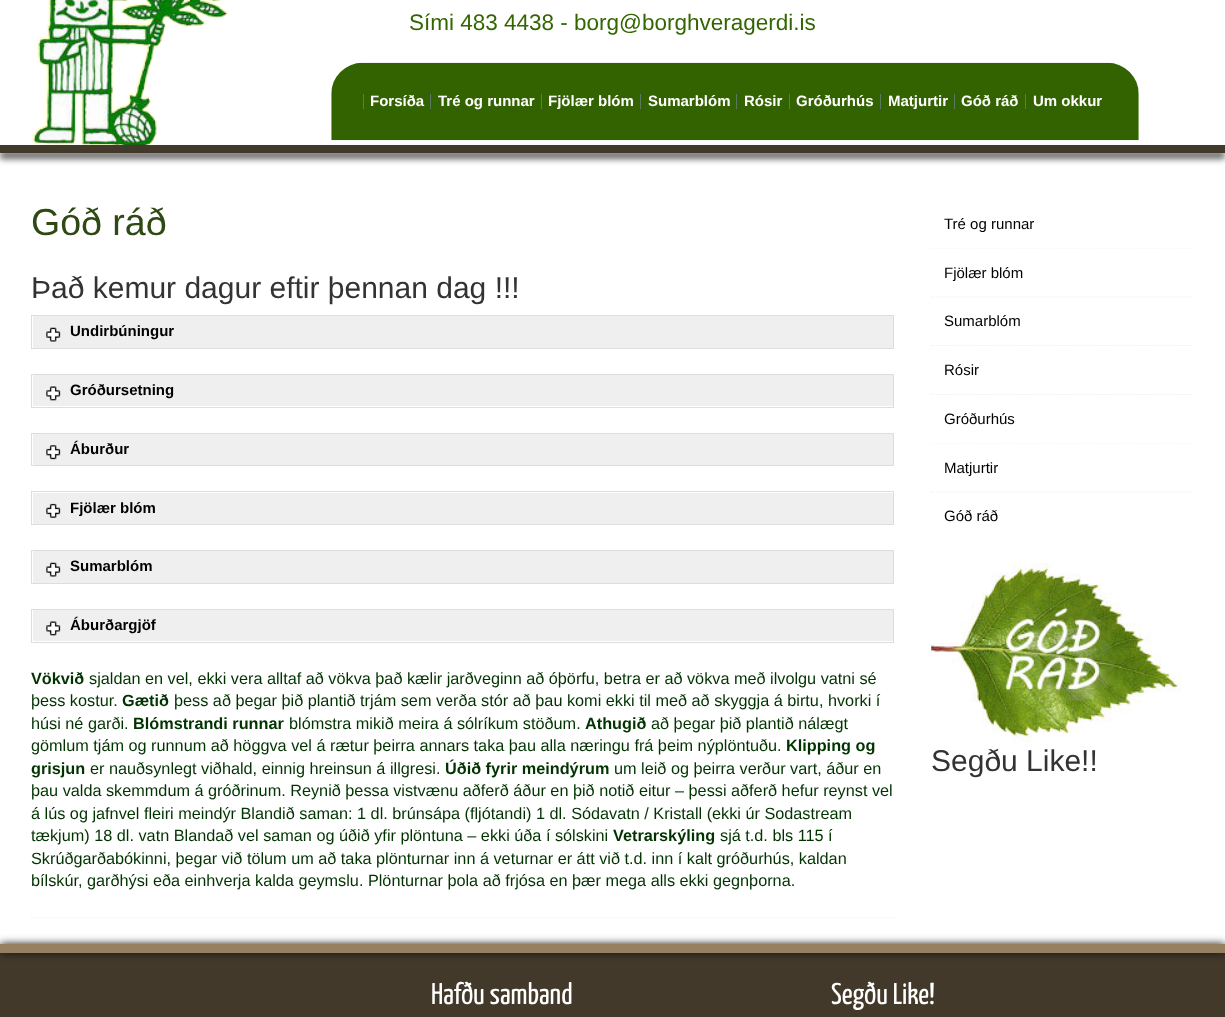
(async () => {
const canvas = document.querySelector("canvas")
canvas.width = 1225
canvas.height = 1017
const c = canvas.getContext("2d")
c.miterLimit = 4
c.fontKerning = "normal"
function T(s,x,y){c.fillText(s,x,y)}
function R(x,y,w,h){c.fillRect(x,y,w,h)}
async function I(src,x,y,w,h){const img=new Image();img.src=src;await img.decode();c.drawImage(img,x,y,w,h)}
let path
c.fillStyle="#fff"
R(0,0,1225,1017)
await I("1.png",31,0,197,145)
c.font="22.5px Liberation Sans"
c.fillStyle="#360"
T("Sími 483 4438 - borg@borghveragerdi.is",409,30)
await I("2.png",331,62,808,79)
c.fillStyle="#5a7a62"
R(363,94,1,15)
c.font="bold 15px Liberation Sans"
c.fillStyle="#fff"
T("Forsíða",370,106)
c.fillStyle="#5a7a62"
R(430,94,1,15)
c.fillStyle="#fff"
T("Tré og runnar",438,106)
c.fillStyle="#5a7a62"
R(541,94,1,15)
c.fillStyle="#fff"
T("Fjölær blóm",548,106)
c.fillStyle="#5a7a62"
R(640,94,1,15)
c.fillStyle="#fff"
T("Sumarblóm",648,106)
c.fillStyle="#5a7a62"
R(736,94,1,15)
c.fillStyle="#fff"
T("Rósir",744,106)
c.fillStyle="#5a7a62"
R(789,94,1,15)
c.fillStyle="#fff"
T("Gróðurhús",796,106)
c.fillStyle="#5a7a62"
R(880,94,1,15)
c.fillStyle="#fff"
T("Matjurtir",888,106)
c.fillStyle="#5a7a62"
R(954,94,1,15)
c.fillStyle="#fff"
T("Góð ráð",961,106)
c.fillStyle="#5a7a62"
R(1025,94,1,15)
c.fillStyle="#fff"
T("Um okkur",1033,106)
c.fillStyle="#323232bf"
c.filter="blur(3px)"
c.beginPath()
c.rect(0,151,1225,8)
c.fill()
c.filter="none"
c.fillStyle="#43392b"
R(0,145,1225,8)
path = new Path2D("M31 918h863")
c.strokeStyle="#f2f2f2"
c.lineWidth=1.2
c.setLineDash([1.25,1.25])
c.stroke(path)
c.font="37.5px Liberation Sans"
c.fillStyle="#2e4914"
T("Góð ráð",31,235)
c.font="30px Liberation Sans"
c.fillStyle="#333"
T("Það kemur dagur eftir þennan dag !!!",31,298)
c.strokeStyle="#ddd"
c.lineWidth=1
c.setLineDash([])
c.strokeRect(31.5,315.5,862,33)
c.fillStyle="#efefef"
R(33,316,860,32)
await I("3.png",46,327,15,15)
c.font="bold 15px Liberation Sans"
c.fillStyle="#000"
T("Undirbúningur",70,336)
c.strokeRect(31.5,374.5,862,33)
c.fillStyle="#efefef"
R(33,375,860,31)
await I("4.png",46,386,15,15)
c.fillStyle="#000"
T("Gróðursetning",70,395)
c.strokeRect(31.5,433.5,862,32)
c.fillStyle="#efefef"
R(33,434,860,31)
await I("5.png",46,445,15,15)
c.fillStyle="#000"
T("Áburður",70,454)
c.strokeRect(31.5,491.5,862,33)
c.fillStyle="#efefef"
R(33,493,860,31)
await I("6.png",46,503,15,15)
c.fillStyle="#000"
T("Fjölær blóm",70,513)
c.strokeRect(31.5,550.5,862,33)
c.fillStyle="#efefef"
R(33,551,860,32)
await I("3.png",46,562,15,15)
c.fillStyle="#000"
T("Sumarblóm",70,571)
c.strokeRect(31.5,609.5,862,33)
c.fillStyle="#efefef"
R(33,610,860,31)
await I("4.png",46,621,15,15)
c.fillStyle="#000"
T("Áburðargjöf",70,630)
c.font="bold 16.25px Liberation Sans"
c.fillStyle="#030"
T("Vökvið",31,684)
c.font="16.25px Liberation Sans"
T("sjaldan en vel, ekki vera alltaf að vökva það kælir jarðveginn að óþörfu, betra er að vökva með ilvolgu vatni sé",89,684)
T("þess kostur.",31,706)
c.font="bold 16.25px Liberation Sans"
T("Gætið",122,706)
c.font="16.25px Liberation Sans"
T("þess að þegar þið plantið trjám sem verða stór að þau komi ekki til með að skyggja á birtu, hvorki í",174,706)
T("húsi né garði.",31,729)
c.font="bold 16.25px Liberation Sans"
T("Blómstrandi runnar",133,729)
c.font="16.25px Liberation Sans"
T("blómstra mikið meira á sólríkum stöðum.",289,729)
c.font="bold 16.25px Liberation Sans"
T("Athugið",585,729)
c.font="16.25px Liberation Sans"
T("að þegar þið plantið nálægt",651,729)
T("gömlum tjám og runnum að höggva vel á rætur þeirra annars taka þau alla næringu frá þeim nýplöntuðu.",31,751)
c.font="bold 16.25px Liberation Sans"
T("Klipping og",786,751)
T("grisjun",31,774)
c.font="16.25px Liberation Sans"
T("er nauðsynlegt viðhald, einnig hreinsun á illgresi.",90,774)
c.font="bold 16.25px Liberation Sans"
T("Úðið fyrir meindýrum",445,774)
c.font="16.25px Liberation Sans"
T("um leið og þeirra verður vart, áður en",614,774)
T("þau valda skemmdum á gróðrinum. Reynið þessa vistvænu aðferð áður en þið notið eitur – þessi aðferð hefur reynst vel",31,796)
T("á lús og jafnvel fleiri meindýr Blandið saman: 1 dl. brúnsápa (fljótandi) 1 dl. Sódavatn / Kristall (ekki úr Sodastream",31,819)
T("tækjum) 18 dl. vatn Blandað vel saman og úðið yfir plöntuna – ekki úða í sólskini",31,841)
c.font="bold 16.25px Liberation Sans"
T("Vetrarskýling",613,841)
c.font="16.25px Liberation Sans"
T("sjá t.d. bls 115 í",720,841)
T("Skrúðgarðabókinni, þegar við tölum um að taka plönturnar inn á veturnar er átt við t.d. inn í kalt gróðurhús, kaldan",31,864)
T("bílskúr, garðhýsi eða einhverja kalda geymslu. Plönturnar þola að frjósa en þær mega alls ekki gegnþorna.",31,886)
path = new Path2D("M931 248h263")
c.strokeStyle="#efefef"
c.lineWidth=1.2
c.setLineDash([1.25,1.25])
c.stroke(path)
c.fillStyle="#fff"
R(931,247,263,1)
c.font="15px Liberation Sans"
c.fillStyle="#000"
T("Tré og runnar",944,229)
path = new Path2D("M931 297h263")
c.stroke(path)
T("Fjölær blóm",944,278)
path = new Path2D("M931 345.5h263")
c.stroke(path)
T("Sumarblóm",944,326)
path = new Path2D("M931 394.5h263")
c.stroke(path)
T("Rósir",944,375)
path = new Path2D("M931 443h263")
c.stroke(path)
c.fillStyle="#fff"
R(931,442,263,1)
c.fillStyle="#000"
T("Gróðurhús",944,424)
path = new Path2D("M931 492h263")
c.stroke(path)
T("Matjurtir",944,473)
T("Góð ráð",944,521)
await I("7.png",931,562,251,181)
c.font="30px Liberation Sans"
c.fillStyle="#333"
T("Segðu Like!!",931,771)
c.fillStyle="#43392b"
R(0,953,1225,64)
c.fillStyle="#111"
c.filter="blur(4px)"
c.beginPath()
c.rect(0,944,1225,9)
c.fill()
c.filter="none"
c.fillStyle="#968060"
R(0,944,1225,9)
c.font="30px Yanone Kaffeesatz"
c.fillStyle="#fff"
T("Hafðu samband",431,1004)
T("Segðu Like!",831,1004)
})()
